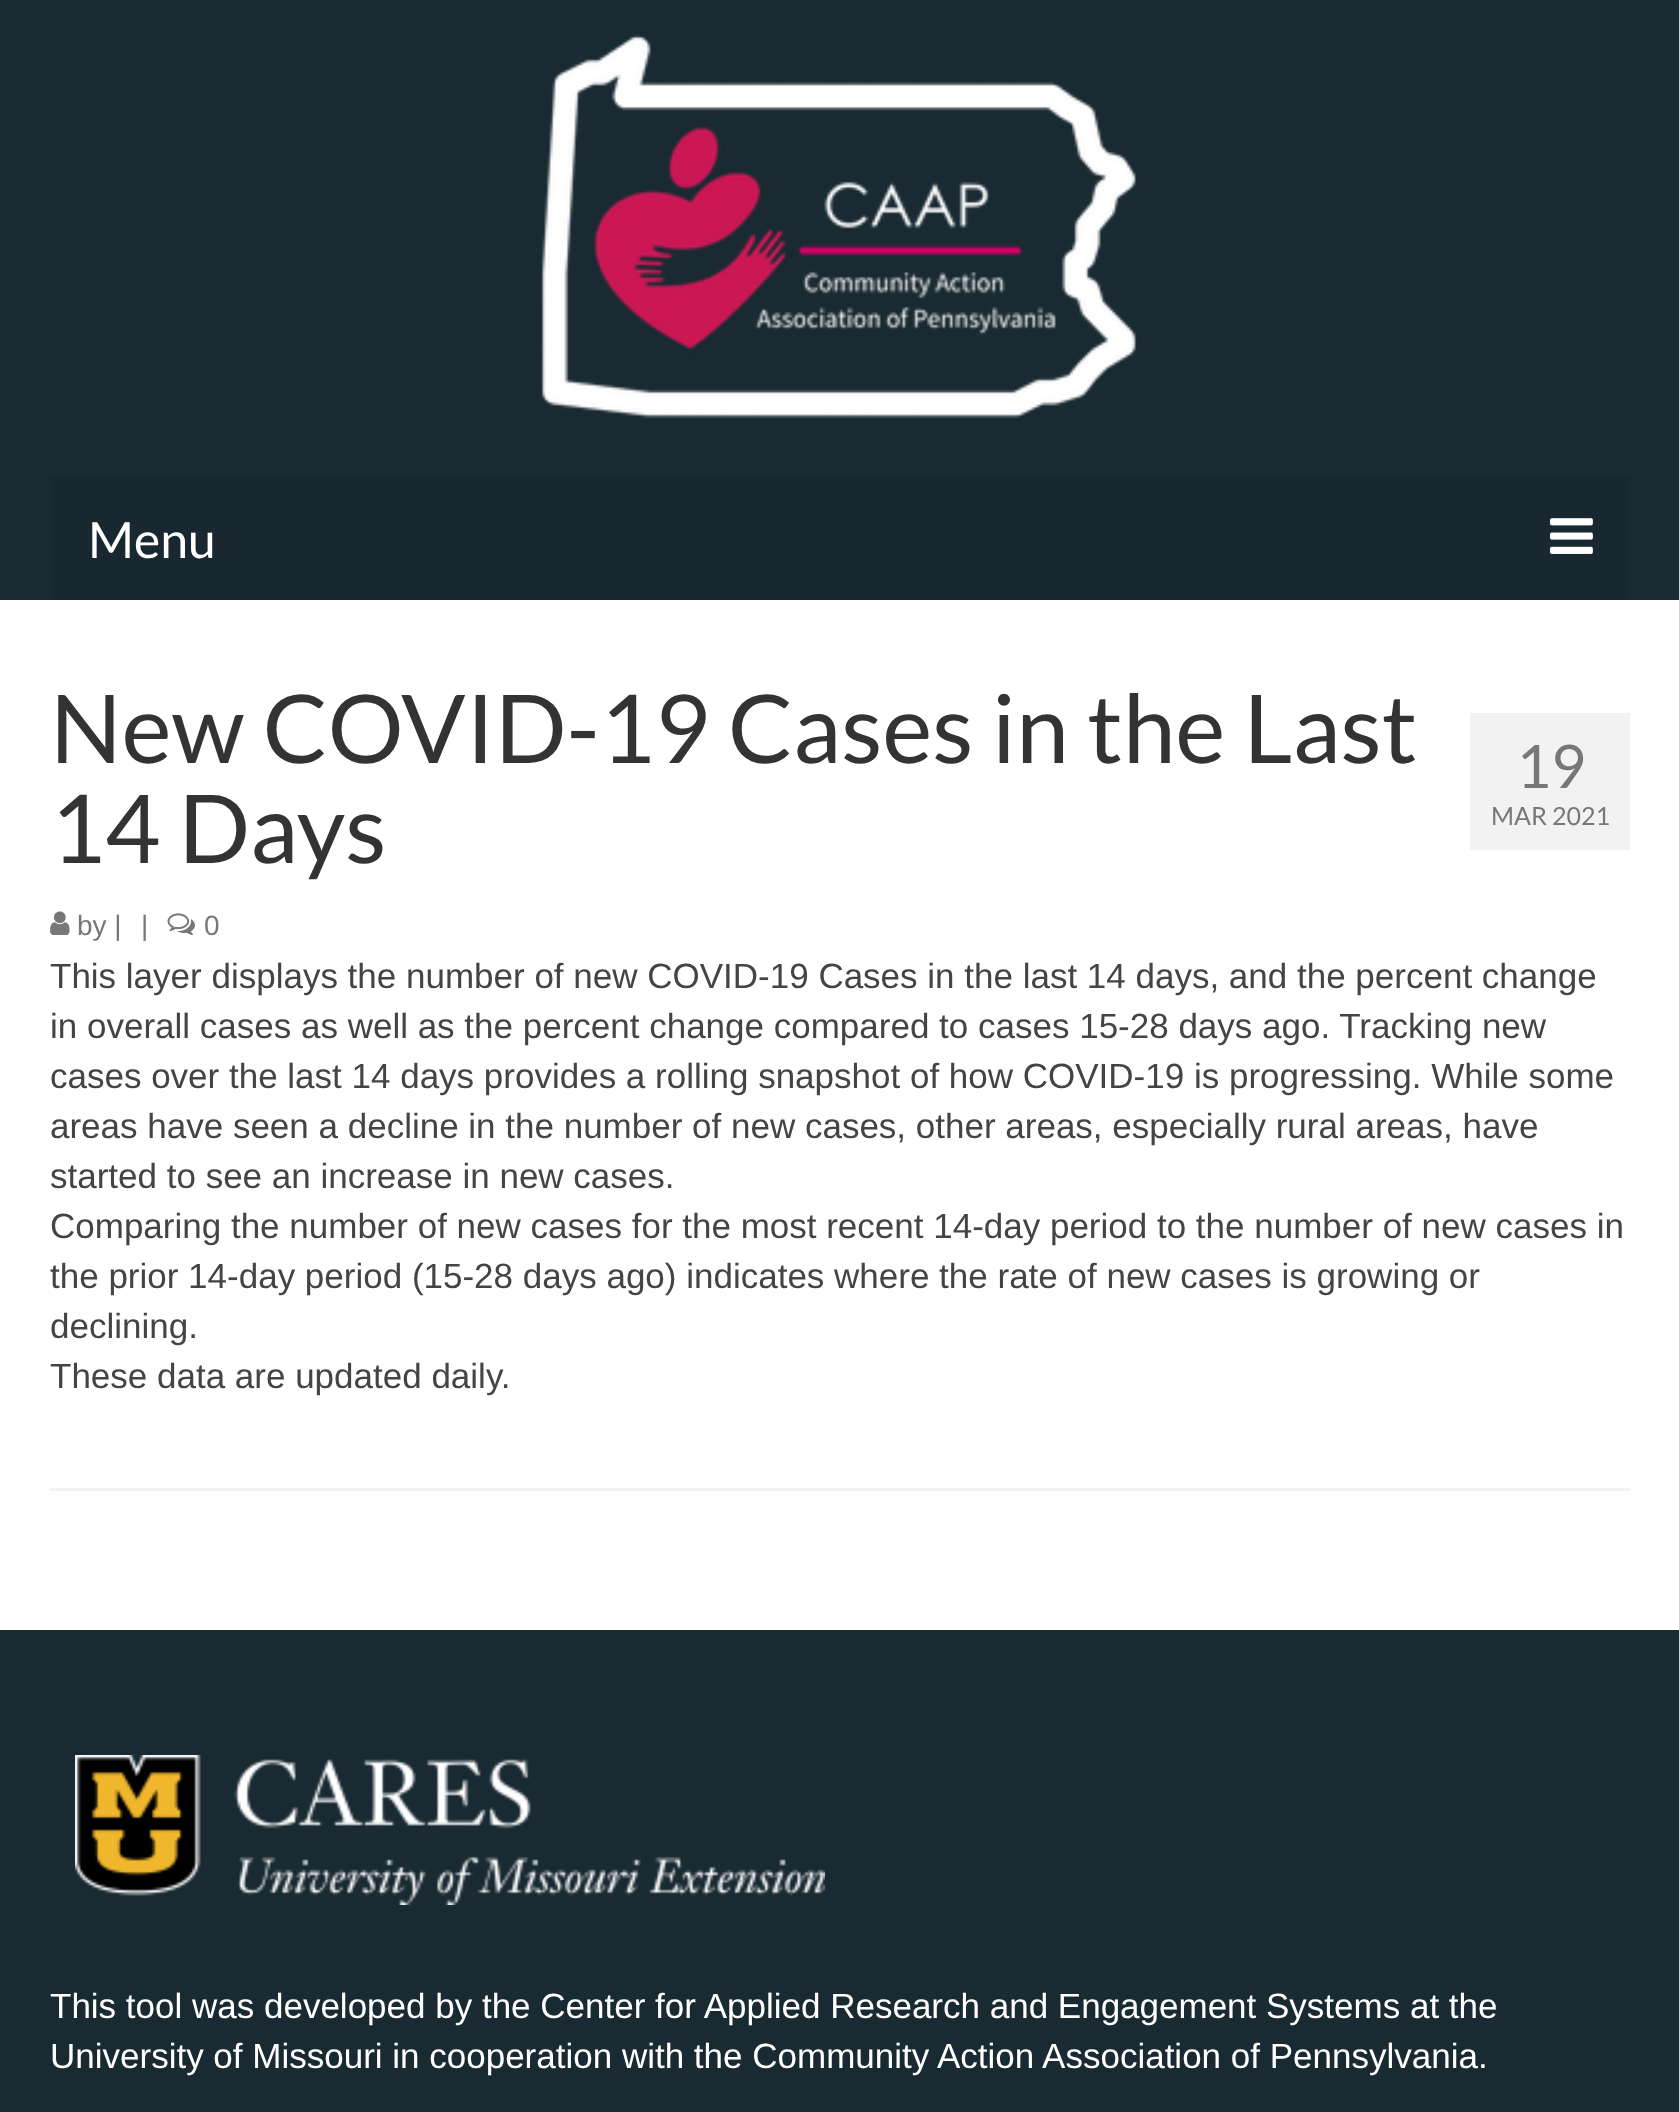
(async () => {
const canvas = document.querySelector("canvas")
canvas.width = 1679
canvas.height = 2112
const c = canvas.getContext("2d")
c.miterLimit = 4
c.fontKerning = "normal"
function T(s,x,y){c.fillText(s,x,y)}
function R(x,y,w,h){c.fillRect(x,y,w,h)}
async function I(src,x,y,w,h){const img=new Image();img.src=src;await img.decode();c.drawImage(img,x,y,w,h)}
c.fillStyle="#fff"
R(0,0,1679,2112)
c.fillStyle="#1a2a33"
R(0,0,1679,600)
await I("1.png",541,34,596,385)
c.fillStyle="#192830"
R(50,475,1580,125)
c.font="50px Lato"
c.fillStyle="#fff"
T("Menu",88,558)
await I("2.png",1550,518,43,36)
c.font="95px Lato"
c.fillStyle="#333"
T("New COVID-19 Cases in the Last",50,763)
T("14 Days",50,863)
await I("3.png",50,911,20,24)
c.font="28px Liberation Sans"
c.fillStyle="#777"
T("by |",77,935)
T("|",141,935)
await I("4.png",167,913,28,22)
T("0",204,935)
c.fillStyle="#f2f2f2"
R(1470,713,160,137)
c.font="60px Lato"
c.fillStyle="#777"
T("19",1516,788)
c.font="25px Lato"
T("MAR 2021",1491,825)
c.font="35px Liberation Sans"
c.fillStyle="#444"
T("This layer displays the number of new COVID-19 Cases in the last 14 days, and the percent change",50,988)
T("in overall cases as well as the percent change compared to cases 15-28 days ago. Tracking new",50,1038)
T("cases over the last 14 days provides a rolling snapshot of how COVID-19 is progressing. While some",50,1088)
T("areas have seen a decline in the number of new cases, other areas, especially rural areas, have",50,1138)
T("started to see an increase in new cases.",50,1188)
T("Comparing the number of new cases for the most recent 14-day period to the number of new cases in",50,1238)
T("the prior 14-day period (15-28 days ago) indicates where the rate of new cases is growing or",50,1288)
T("declining.",50,1338)
T("These data are updated daily.",50,1388)
c.fillStyle="#f2f2f2"
R(50,1488,1580,3)
c.fillStyle="#1a2a33"
R(0,1630,1679,482)
await I("5.png",75,1755,750,150)
c.fillStyle="#fff"
T("This tool was developed by the Center for Applied Research and Engagement Systems at the",50,2018)
T("University of Missouri in cooperation with the Community Action Association of Pennsylvania.",50,2068)
})()
